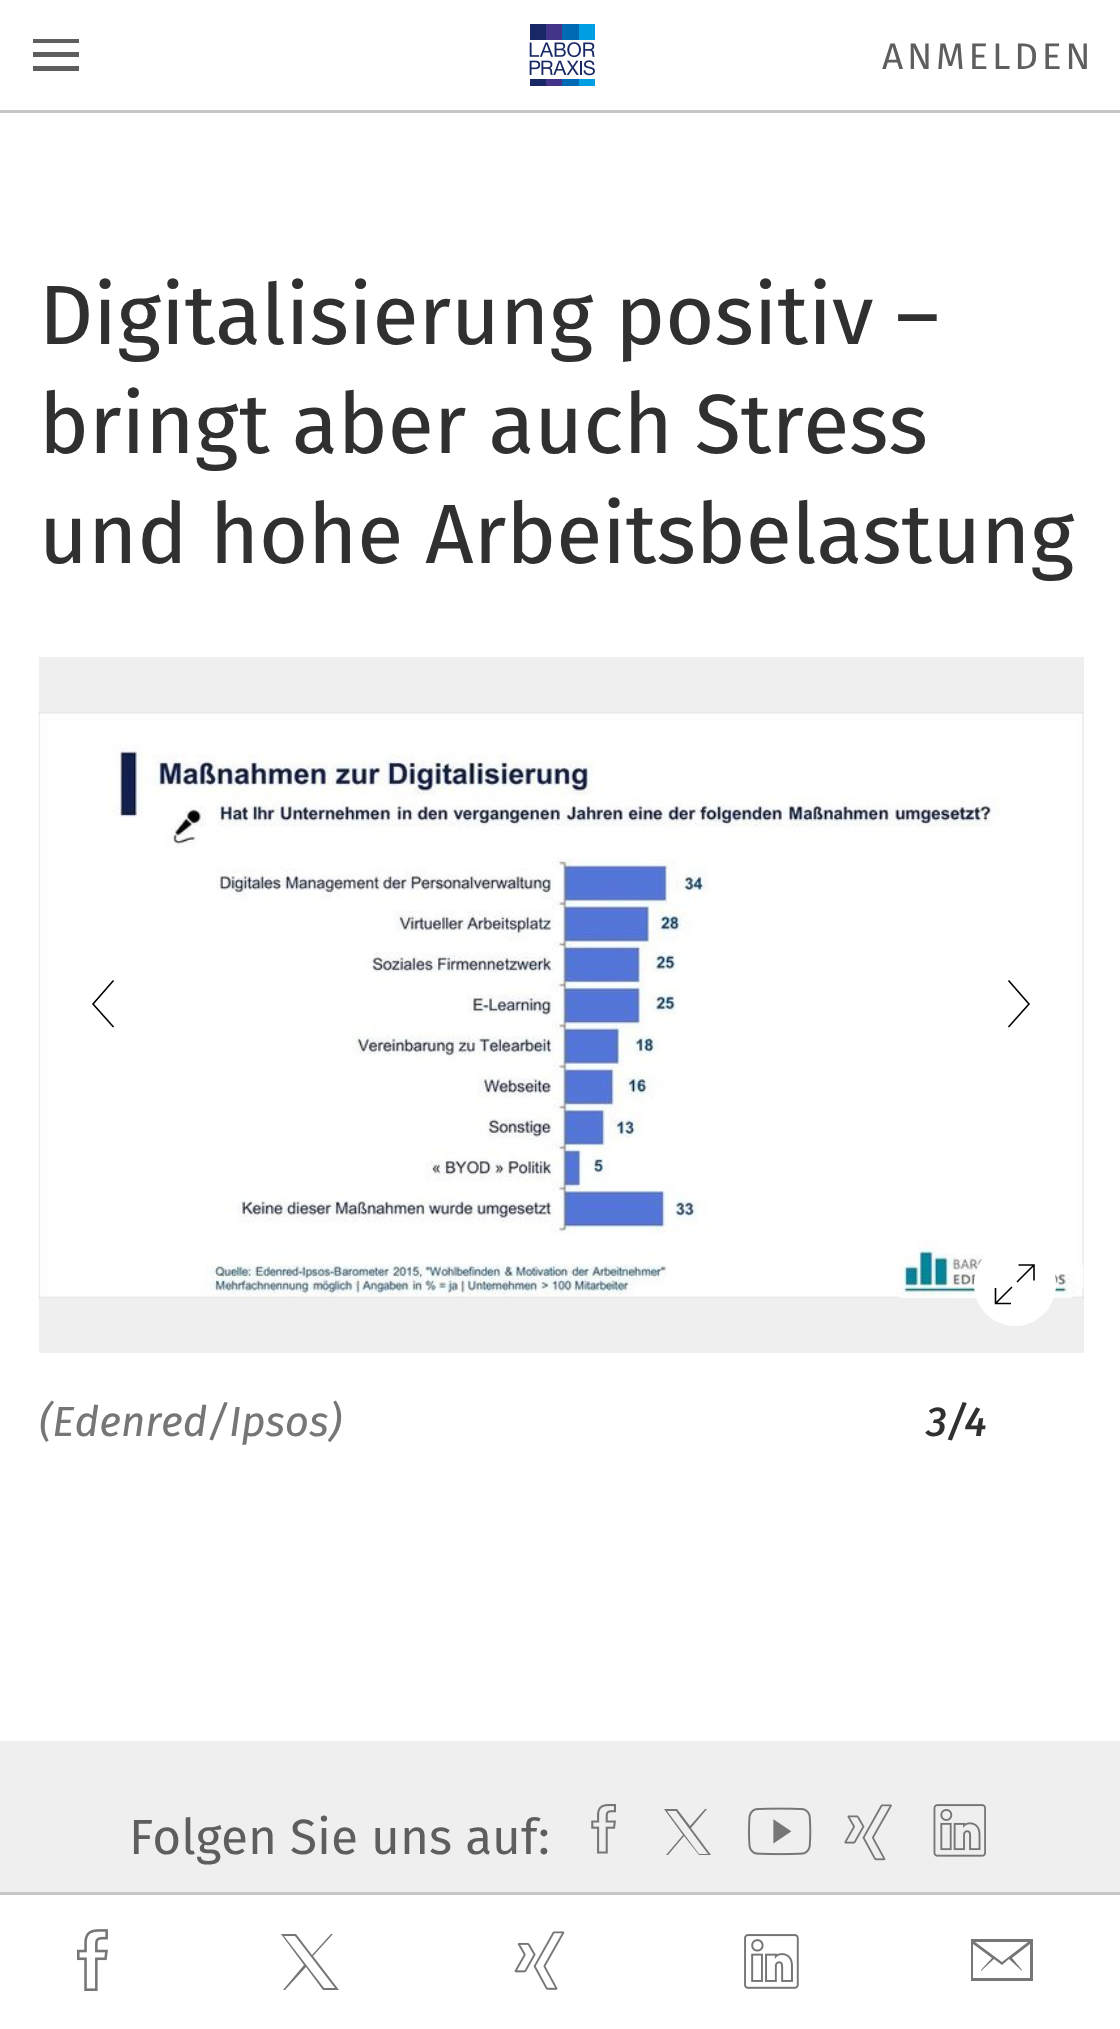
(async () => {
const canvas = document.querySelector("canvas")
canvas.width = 1120
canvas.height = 2029
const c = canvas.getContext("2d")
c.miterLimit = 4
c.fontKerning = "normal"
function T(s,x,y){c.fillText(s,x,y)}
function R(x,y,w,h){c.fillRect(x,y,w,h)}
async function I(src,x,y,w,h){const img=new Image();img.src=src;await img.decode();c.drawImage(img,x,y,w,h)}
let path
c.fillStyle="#fff"
R(0,0,1120,2029)
c.fillStyle="#c6c6c6"
R(0,110,1120,3)
c.fillStyle="#5e5e5e"
path = new Path2D("M33 57v-5h46v5zm0-14v-4h46v4zm0 28v-5h46v5z")
c.fill(path)
await I("1.png",529,24,66,62)
c.letterSpacing="3.75px"
c.font="37px 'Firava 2'"
T("ANMELDEN",882,69)
c.letterSpacing="0px"
c.font="84.2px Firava"
c.fillStyle="#303030"
T("Digitalisierung positiv –",39,344)
T("bringt aber auch Stress",39,453)
T("und hohe Arbeitsbelastung",39,563)
c.fillStyle="#efefef"
R(39,657,1045,696)
await I("2.png",38,712,1046,586)
path = new Path2D("M113.5 980.5l-20.5 23.5l20.5 23")
c.strokeStyle="#000"
c.lineWidth=1.6
c.stroke(path)
path = new Path2D("M1008.5 1027l20.5-23l-20.5-23.5")
c.stroke(path)
c.fillStyle="#fff"
path = new Path2D("M1015 1326c23 0 41-19 41-42c0-23-18-41-41-41c-23 0-41 18-41 41c0 23 18 42 41 42")
c.fill(path)
path = new Path2D("M1034 1280.5v-15.5h-15.5m-23 23v15.5h15.5m22.5-38l-16.5 16.5m-5 5l-16.5 16.5")
c.stroke(path)
c.font="italic 42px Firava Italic"
c.fillStyle="#767676"
T("(Edenred/Ipsos)",39,1436)
c.font="italic 500 42px Firava Italic"
c.fillStyle="#303030"
T("3/4",926,1436)
c.fillStyle="#c6c6c6"
R(0,1892,1120,3)
await I("3.png",77,1929,31,62)
c.fillStyle="#767676"
path = new Path2D("M283 1990h2l21-23l17 23h16l-26-34l20-22h-2l-19 21l-16-21h-15l23 31zm1-54h11l40 52h-11z")
c.fill(path)
await I("4.png",514,1931,51,59)
await I("5.png",744,1934,55,55)
path = new Path2D("M971 1939h62v42h-62zm31 23l26-20h-53zm-29 16h57v-34l-18 14l10 12v1l-13-12l-7 6l-8-6l-13 12v-1l11-12l-19-14z")
c.fill(path)
c.fillStyle="#efefef"
R(0,1741,1120,151)
c.font="49.5px 'Firava 2'"
c.fillStyle="#5e5e5e"
T("Folgen Sie uns auf:",129,1854)
await I("6.png",591,1804,25,50)
c.fillStyle="#767676"
path = new Path2D("M666 1855h2l16-19l15 19h12l-20-27l16-19h-2l-15 17l-13-17h-13l19 26zm1-44h9l32 43h-9z")
c.fill(path)
await I("7.png",748,1807,64,49)
await I("8.png",844,1804,48,57)
await I("9.png",933,1804,53,53)
})()
